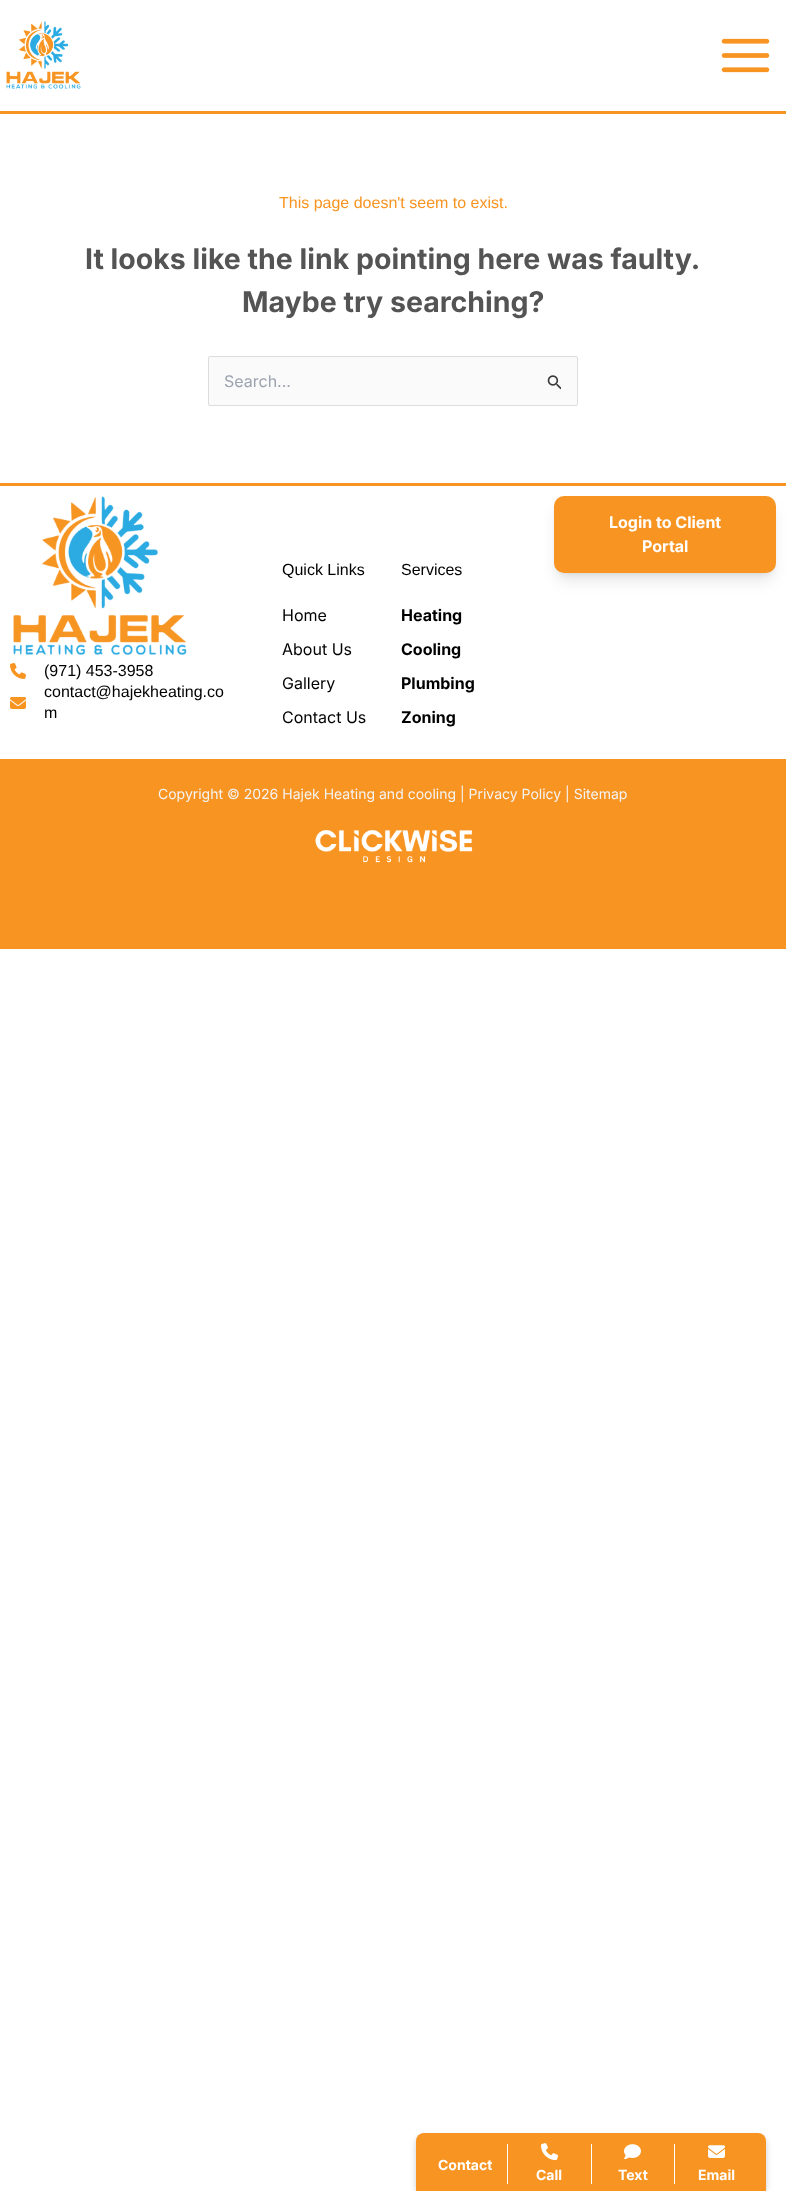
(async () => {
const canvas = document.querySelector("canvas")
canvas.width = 786
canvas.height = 2191
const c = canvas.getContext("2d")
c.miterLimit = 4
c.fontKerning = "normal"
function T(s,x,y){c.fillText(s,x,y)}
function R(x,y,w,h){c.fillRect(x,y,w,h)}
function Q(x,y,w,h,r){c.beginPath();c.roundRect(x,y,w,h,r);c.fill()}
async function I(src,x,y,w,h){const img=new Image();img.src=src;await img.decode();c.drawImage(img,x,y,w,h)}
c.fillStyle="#fff"
R(0,0,786,2191)
c.fillStyle="#f89421"
R(0,111,786,3)
await I("1.png",6,21,75,68)
await I("2.png",721,38,49,35)
c.font="16px Liberation Sans"
T("This page doesn't seem to exist.",279,208)
c.font="bold 28.5px Inter"
c.fillStyle="#545454"
T("It looks like the link pointing here was faulty.",85,269)
T("Maybe try searching?",242,312)
c.fillStyle="#fafafa"
c.beginPath()
c.roundRect(208.5,356.5,369,49,1.5)
c.fill()
c.strokeStyle="#ddd"
c.stroke()
c.font="16px Inter"
c.fillStyle="#9ca3af"
T("Search...",224,387)
await I("3.png",547,375,14,15)
c.fillStyle="#f89421"
R(0,483,786,3)
c.fillStyle="#0000001a"
c.filter="blur(3px)"
c.beginPath()
c.roundRect(558,504,214,69,6)
c.fill()
c.filter="none"
c.filter="blur(7.5px)"
c.beginPath()
c.roundRect(557,509,216,71,7)
c.fill()
c.filter="none"
c.fillStyle="#f89421"
Q(554,496,222,77,10)
c.font="bold 16px Inter"
c.fillStyle="#fff"
T("Login to Client",609,528)
T("Portal",642,552)
await I("4.png",13,496,174,159)
await I("5.png",10,663,16,16)
c.font="16px Liberation Sans"
c.fillStyle="#000"
T("(971) 453-3958",44,676)
await I("6.png",10,697,16,12)
T("contact@hajekheating.co",44,697)
T("m",44,718)
T("Quick Links",282,575)
c.font="16px Inter"
T("Home",282,621)
T("About Us",282,655)
T("Gallery",282,689)
T("Contact Us",282,723)
c.font="16px Liberation Sans"
T("Services",401,575)
c.font="bold 16px Inter"
T("Heating",401,621)
T("Cooling",401,655)
T("Plumbing",401,689)
T("Zoning",401,723)
c.fillStyle="#f89421"
R(0,759,786,190)
c.font="14px Inter"
c.fillStyle="#f4f4f4"
T("Copyright © 2026 Hajek Heating and cooling | Privacy Policy | Sitemap",158,799)
await I("7.png",315,830,158,33)
c.fillStyle="#00000033"
c.filter="blur(3px)"
c.beginPath()
c.roundRect(416,2137,350,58,8)
c.fill()
c.filter="none"
c.fillStyle="#f89421"
c.beginPath()
c.roundRect(416,2133,350,58,[8,8,0,0])
c.fill()
c.font="bold 14px Inter"
c.fillStyle="#fff"
T("Contact",438,2170)
R(507,2144,1,40)
R(591,2144,1,40)
R(674,2144,1,40)
await I("8.png",541,2143,17,18)
T("Call",536,2180)
await I("9.png",624,2144,17,15)
T("Text",618,2180)
await I("10.png",708,2145,17,13)
T("Email",698,2180)
})()
